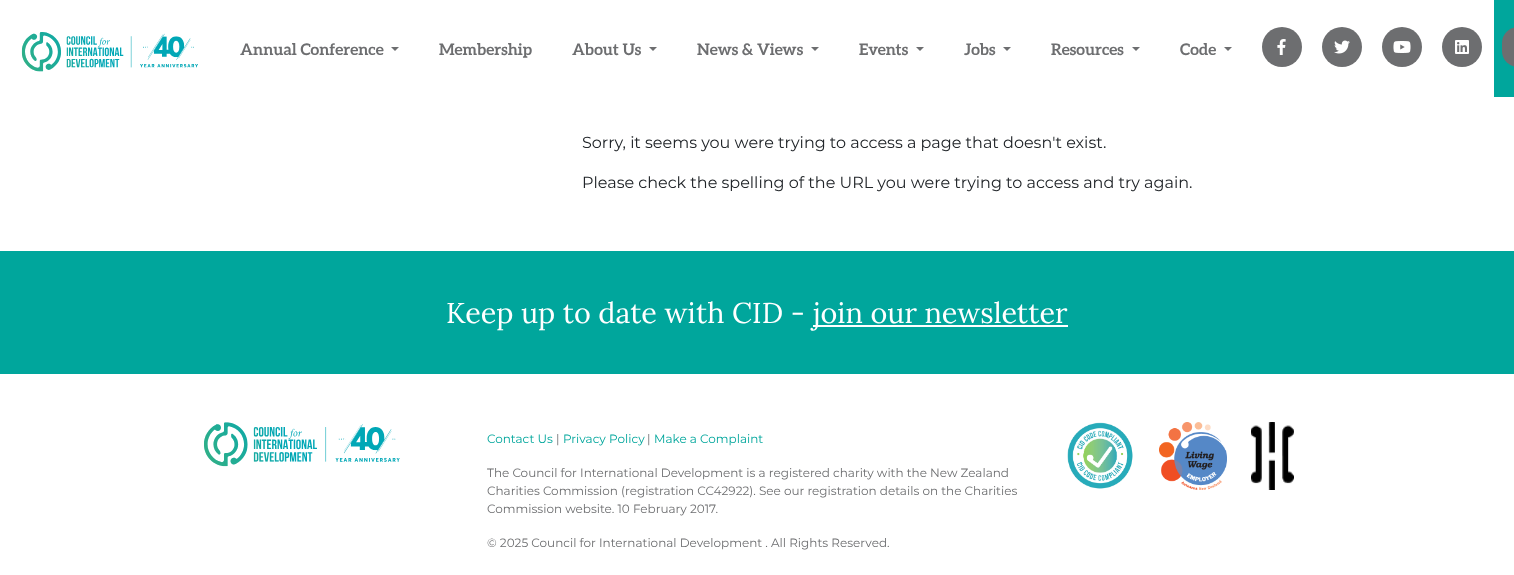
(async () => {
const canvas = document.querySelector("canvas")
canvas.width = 1514
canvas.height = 575
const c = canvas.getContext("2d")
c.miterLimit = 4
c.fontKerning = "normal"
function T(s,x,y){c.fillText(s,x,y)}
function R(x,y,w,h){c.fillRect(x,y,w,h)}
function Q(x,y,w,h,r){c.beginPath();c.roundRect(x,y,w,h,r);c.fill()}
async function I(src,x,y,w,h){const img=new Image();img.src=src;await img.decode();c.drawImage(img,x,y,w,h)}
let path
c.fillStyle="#fff"
R(0,0,1514,575)
await I("1.png",21,32,177,40)
c.font="bold 16px Aleo"
c.fillStyle="#6d6e70"
T("Annual Conference",240,55)
path = new Path2D("M391 47h8l-4 4z")
c.fill(path)
T("Membership",439,55)
T("About Us",572,55)
path = new Path2D("M649 47h8l-4 4z")
c.fill(path)
T("News & Views",697,55)
path = new Path2D("M811 47h8l-4 4z")
c.fill(path)
T("Events",859,55)
path = new Path2D("M916 47h8l-4 4z")
c.fill(path)
T("Jobs",964,55)
path = new Path2D("M1003 47h8l-4 4z")
c.fill(path)
T("Resources",1051,55)
path = new Path2D("M1132 47h8l-4 4z")
c.fill(path)
T("Code",1180,55)
path = new Path2D("M1224 47h8l-4 4z")
c.fill(path)
c.beginPath()
c.arc(1282,47,20,0,7)
c.fill()
await I("2.png",1277,39,9,16)
c.beginPath()
c.arc(1342,47,20,0,7)
c.fill()
await I("3.png",1334,40,16,14)
c.beginPath()
c.arc(1402,47,20,0,7)
c.fill()
await I("4.png",1393,41,18,12)
c.beginPath()
c.arc(1462,47,20,0,7)
c.fill()
await I("5.png",1455,40,14,14)
c.fillStyle="#00a69c"
R(1494,0,20,97)
c.fillStyle="#6d6e70"
Q(1502,27,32,40,20)
c.font="16px Montserrat"
c.fillStyle="#212529"
T("Sorry, it seems you were trying to access a page that doesn't exist.",582,148)
T("Please check the spelling of the URL you were trying to access and try again.",582,188)
c.fillStyle="#00a69c"
R(0,251,1514,123)
c.font="28.75px Lora"
c.fillStyle="#fff"
T("Keep up to date with CID -",446,323)
R(813,325,255,2)
T("join our newsletter",813,323)
await I("6.png",204,422,196,45)
c.font="12px Montserrat"
c.fillStyle="#00a69c"
T("Contact Us",487,443)
c.fillStyle="#6d6e70"
T("|",556,443)
c.fillStyle="#00a69c"
T("Privacy Policy",563,443)
c.fillStyle="#6d6e70"
T("|",647,443)
c.fillStyle="#00a69c"
T("Make a Complaint",654,443)
c.fillStyle="#6d6e70"
T("The Council for International Development is a registered charity with the New Zealand",487,477)
T("Charities Commission (registration CC42922). See our registration details on the Charities",487,495)
T("Commission website. 10 February 2017.",487,513)
T("© 2025 Council for International Development . All Rights Reserved.",487,547)
await I("7.png",1067,422,66,67)
await I("8.png",1159,422,68,68)
await I("9.png",1251,422,43,68)
})()
